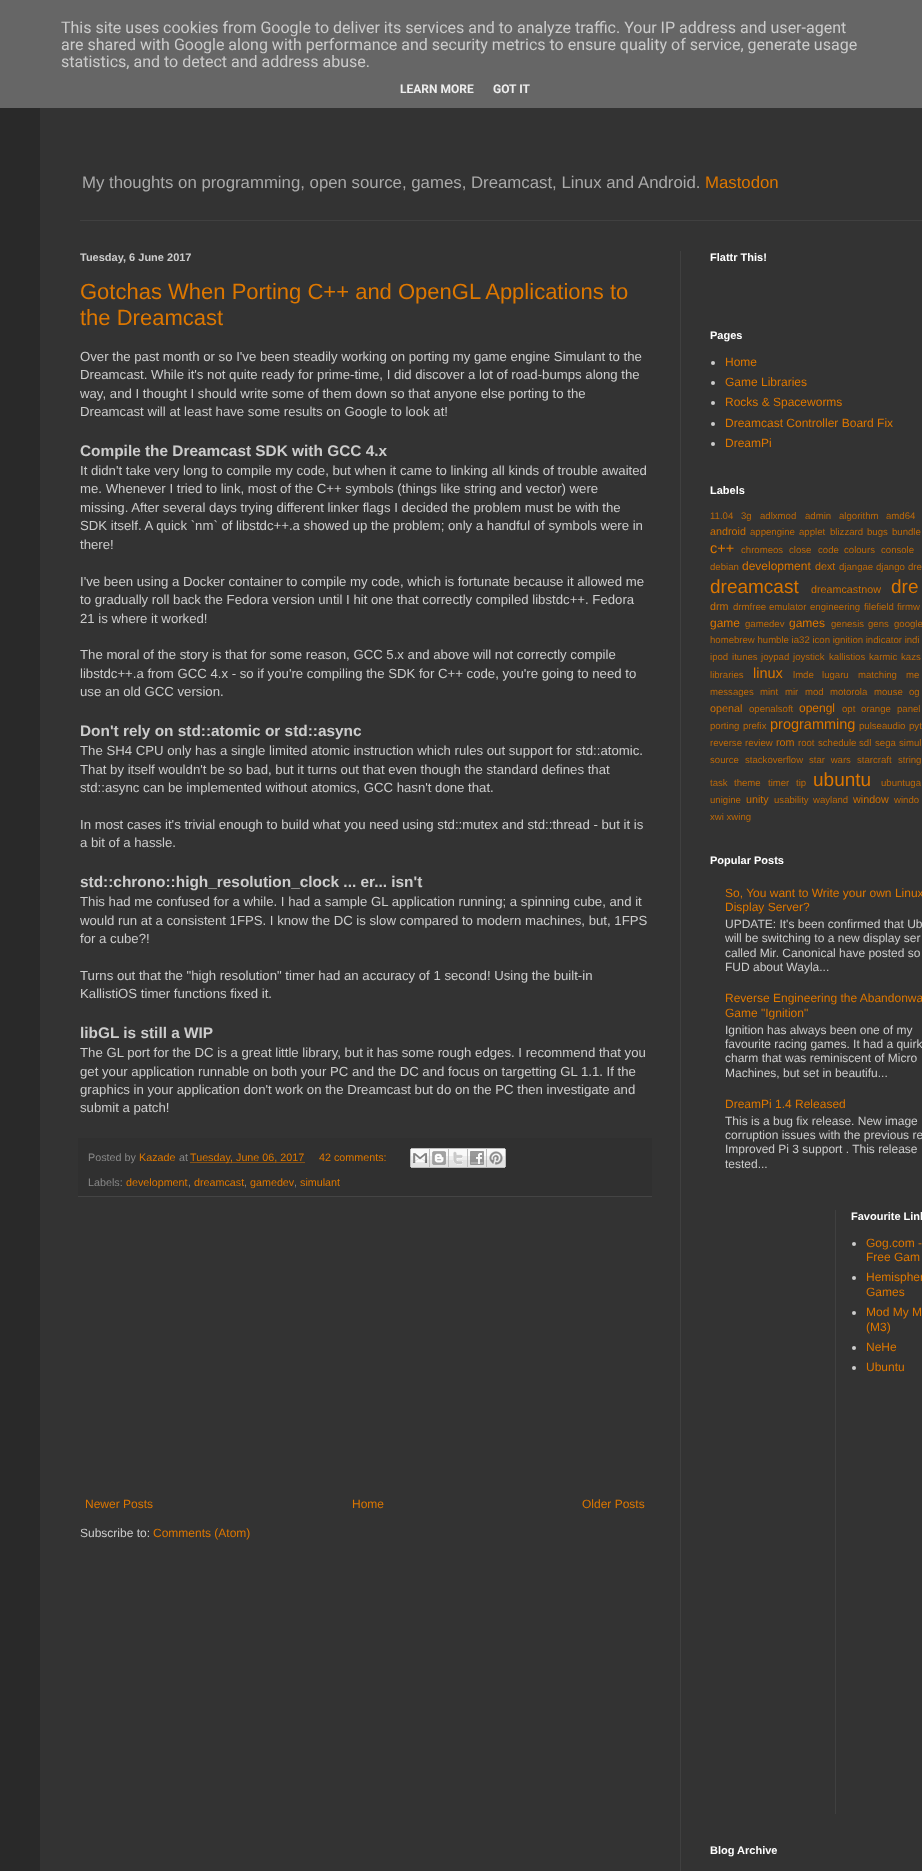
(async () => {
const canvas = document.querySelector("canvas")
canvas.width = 922
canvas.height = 1871
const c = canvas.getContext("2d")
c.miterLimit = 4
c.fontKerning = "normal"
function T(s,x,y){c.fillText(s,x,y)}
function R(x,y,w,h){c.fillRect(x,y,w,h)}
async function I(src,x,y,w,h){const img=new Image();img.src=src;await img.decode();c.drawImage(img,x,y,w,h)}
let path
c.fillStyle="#292929"
R(0,0,922,1871)
c.fillStyle="#666"
R(0,0,922,108)
c.font="16px Roboto"
c.fillStyle="#ccc"
T("This site uses cookies from Google to deliver its services and to analyze traffic. Your IP address and user-agent",61,33)
T("are shared with Google along with performance and security metrics to ensure quality of service, generate usage",61,50)
T("statistics, and to detect and address abuse.",61,67)
c.font="bold 12px Roboto"
c.fillStyle="#eee"
T("LEARN MORE",400,93)
T("GOT IT",493,93)
c.fillStyle="#333"
R(40,108,882,1763)
c.font="16.8px Liberation Sans"
c.fillStyle="#aaa"
T("My thoughts on programming, open source, games, Dreamcast, Linux and Android.",82,188)
c.fillStyle="#d70"
T("Mastodon",705,188)
c.fillStyle="#404040"
R(80,220,842,1)
R(680,251,1,1620)
c.font="bold 11px Liberation Sans"
c.fillStyle="#ccc"
T("Tuesday, 6 June 2017",80,261)
c.font="22px Liberation Sans"
c.fillStyle="#d70"
T("Gotchas When Porting C++ and OpenGL Applications to",80,299)
T("the Dreamcast",80,325)
c.font="13.2px Liberation Sans"
c.fillStyle="#ccc"
T("Over the past month or so I've been steadily working on porting my game engine Simulant to the",80,361)
T("Dreamcast. While it's not quite ready for prime-time, I did discover a lot of road-bumps along the",80,379)
T("way, and I thought I should write some of them down so that anyone else porting to the",80,398)
T("Dreamcast will at least have some results on Google to look at!",80,416)
c.font="bold 15.4px Liberation Sans"
T("Compile the Dreamcast SDK with GCC 4.x",80,456)
c.font="13.2px Liberation Sans"
T("It didn't take very long to compile my code, but when it came to linking all kinds of trouble awaited",80,475)
T("me. Whenever I tried to link, most of the C++ symbols (things like string and vector) were",80,493)
T("missing. After several days trying different linker flags I decided the problem must be with the",80,512)
T("SDK itself. A quick `nm` of libstdc++.a showed up the problem; only a handful of symbols were in",80,530)
T("there!",80,549)
T("I've been using a Docker container to compile my code, which is fortunate because it allowed me",80,586)
T("to gradually roll back the Fedora version until I hit one that correctly compiled libstdc++. Fedora",80,604)
T("21 is where it worked!",80,623)
T("The moral of the story is that for some reason, GCC 5.x and above will not correctly compile",80,659)
T("libstdc++.a from GCC 4.x - so if you're compiling the SDK for C++ code, you're going to need to",80,678)
T("use an old GCC version.",80,696)
c.font="bold 15.4px Liberation Sans"
T("Don't rely on std::atomic or std::async",80,736)
c.font="13.2px Liberation Sans"
T("The SH4 CPU only has a single limited atomic instruction which rules out support for std::atomic.",80,755)
T("That by itself wouldn't be so bad, but it turns out that even though the standard defines that",80,774)
T("std::async can be implemented without atomics, GCC hasn't done that.",80,792)
T("In most cases it's trivial enough to build what you need using std::mutex and std::thread - but it is",80,829)
T("a bit of a hassle.",80,847)
c.font="bold 15.4px Liberation Sans"
T("std::chrono::high_resolution_clock ... er... isn't",80,887)
c.font="13.2px Liberation Sans"
T("This had me confused for a while. I had a sample GL application running; a spinning cube, and it",80,906)
T("would run at a consistent 1FPS. I know the DC is slow compared to modern machines, but, 1FPS",80,925)
T("for a cube?!",80,943)
T("Turns out that the \"high resolution\" timer had an accuracy of 1 second! Using the built-in",80,980)
T("KallistiOS timer functions fixed it.",80,998)
c.font="bold 15.4px Liberation Sans"
T("libGL is still a WIP",80,1038)
c.font="13.2px Liberation Sans"
T("The GL port for the DC is a great little library, but it has some rough edges. I recommend that you",80,1057)
T("get your application runnable on both your PC and the DC and focus on targetting GL 1.1. If the",80,1076)
T("graphics in your application don't work on the Dreamcast but do on the PC then investigate and",80,1094)
T("submit a patch!",80,1112)
c.fillStyle="#303030"
R(78,1138,574,58)
c.fillStyle="#444"
R(78,1196,574,1)
c.font="10.75px Liberation Sans"
c.fillStyle="#888"
T("Posted by",88,1161)
c.fillStyle="#d70"
T("Kazade",139,1161)
c.fillStyle="#888"
T("at",179,1161)
path = new Path2D("M190.5 1162.5h114.5")
c.strokeStyle="#d70"
c.setLineDash([1,1])
c.stroke(path)
c.fillStyle="#d70"
T("Tuesday, June 06, 2017",190,1161)
T("42 comments:",319,1161)
await I("1.png",410,1148,20,20)
await I("2.png",430,1148,19,20)
await I("3.png",449,1148,19,20)
await I("4.png",468,1148,19,20)
await I("5.png",487,1148,19,20)
c.fillStyle="#888"
T("Labels:",88,1186)
c.fillStyle="#d70"
T("development",126,1186)
c.fillStyle="#888"
T(",",188,1186)
c.fillStyle="#d70"
T("dreamcast",194,1186)
c.fillStyle="#888"
T(",",244,1186)
c.fillStyle="#d70"
T("gamedev",250,1186)
T("simulant",300,1186)
c.fillStyle="#888"
T(",",294,1186)
c.font="12px Liberation Sans"
c.fillStyle="#d70"
T("Newer Posts",85,1508)
T("Home",352,1508)
T("Older Posts",582,1508)
c.fillStyle="#ccc"
T("Subscribe to:",80,1537)
c.fillStyle="#d70"
T("Comments (Atom)",153,1537)
c.font="bold 11px Liberation Sans"
c.fillStyle="#fff"
T("Flattr This!",710,261)
T("Pages",710,339)
c.fillStyle="#ccc"
c.beginPath()
c.arc(713,363,2,0,7)
c.fill()
c.font="12px Liberation Sans"
c.fillStyle="#d70"
T("Home",725,366)
c.fillStyle="#ccc"
c.beginPath()
c.arc(713,383,2,0,7)
c.fill()
c.fillStyle="#d70"
T("Game Libraries",725,386)
c.fillStyle="#ccc"
c.beginPath()
c.arc(713,403,2,0,7)
c.fill()
c.fillStyle="#d70"
T("Rocks & Spaceworms",725,406)
c.fillStyle="#ccc"
c.beginPath()
c.arc(713,424,2,0,7)
c.fill()
c.fillStyle="#d70"
T("Dreamcast Controller Board Fix",725,427)
c.fillStyle="#ccc"
c.beginPath()
c.arc(713,444,2,0,7)
c.fill()
c.fillStyle="#d70"
T("DreamPi",725,447)
c.font="bold 11px Liberation Sans"
c.fillStyle="#fff"
T("Labels",710,494)
c.font="9.6px Liberation Sans"
c.fillStyle="#bb690a"
T("11.04",710,519)
T("3g",741,519)
T("adlxmod",760,519)
T("admin",805,519)
T("algorithm",839,519)
T("amd64",886,519)
c.font="10.75px Liberation Sans"
c.fillStyle="#cc7005"
T("android",710,535)
c.font="9.6px Liberation Sans"
c.fillStyle="#bb690a"
T("appengine",750,535)
T("applet",799,535)
T("blizzard",830,535)
T("bugs",867,535)
T("bundle",892,535)
c.font="14.5px Liberation Sans"
c.fillStyle="#d70"
T("c++",710,553)
c.font="9.6px Liberation Sans"
c.fillStyle="#bb690a"
T("chromeos",741,553)
T("close",789,553)
T("code",818,553)
T("colours",844,553)
T("console",881,553)
T("debian",710,570)
c.font="12px Liberation Sans"
c.fillStyle="#d70"
T("development",742,570)
c.font="10.75px Liberation Sans"
c.fillStyle="#cc7005"
T("dext",815,570)
c.font="9.6px Liberation Sans"
c.fillStyle="#bb690a"
T("djangae",839,570)
T("django",876,570)
T("dre",908,570)
c.font="19px Liberation Sans"
c.fillStyle="#d70"
T("dreamcast",710,593)
c.font="10.75px Liberation Sans"
c.fillStyle="#cc7005"
T("dreamcastnow",811,593)
c.font="19px Liberation Sans"
c.fillStyle="#d70"
T("dre",891,593)
c.font="10.75px Liberation Sans"
c.fillStyle="#cc7005"
T("drm",710,610)
c.font="9.6px Liberation Sans"
c.fillStyle="#bb690a"
T("drmfree",733,610)
T("emulator",769,610)
T("engineering",810,610)
T("filefield",864,610)
T("firmw",897,610)
c.font="12px Liberation Sans"
c.fillStyle="#d70"
T("game",710,627)
c.font="9.6px Liberation Sans"
c.fillStyle="#bb690a"
T("gamedev",745,627)
c.font="12px Liberation Sans"
c.fillStyle="#d70"
T("games",789,627)
c.font="9.6px Liberation Sans"
c.fillStyle="#bb690a"
T("genesis",831,627)
T("gens",868,627)
T("google",894,627)
T("homebrew humble ia32 icon ignition indicator indi",710,643)
T("ipod",710,660)
T("itunes",732,660)
T("joypad",761,660)
T("joystick",793,660)
T("kallistios",829,660)
T("karmic",869,660)
T("kazs",901,660)
T("libraries",710,678)
c.font="14.5px Liberation Sans"
c.fillStyle="#d70"
T("linux",753,678)
c.font="9.6px Liberation Sans"
c.fillStyle="#bb690a"
T("lmde",793,678)
T("lugaru",822,678)
T("matching",858,678)
c.wordSpacing="6px"
T("me",906,678)
c.wordSpacing="0px"
T("messages",710,695)
T("mint",760,695)
T("mir",785,695)
T("mod",805,695)
T("motorola",830,695)
T("mouse",874,695)
T("og",909,695)
c.font="10.75px Liberation Sans"
c.fillStyle="#cc7005"
T("openal",710,712)
c.font="9.6px Liberation Sans"
c.fillStyle="#bb690a"
T("openalsoft",749,712)
c.font="12px Liberation Sans"
c.fillStyle="#d70"
T("opengl",799,712)
c.font="9.6px Liberation Sans"
c.fillStyle="#bb690a"
T("opt",842,712)
T("orange",861,712)
T("panel",897,712)
T("porting",710,729)
T("prefix",743,729)
c.font="14.5px Liberation Sans"
c.fillStyle="#d70"
T("programming",770,729)
c.font="9.6px Liberation Sans"
c.fillStyle="#bb690a"
T("pulseaudio",859,729)
T("pyt",909,729)
T("reverse",710,746)
T("review",745,746)
c.font="10.75px Liberation Sans"
c.fillStyle="#cc7005"
T("rom",776,746)
c.font="9.6px Liberation Sans"
c.fillStyle="#bb690a"
T("root",798,746)
T("schedule",818,746)
T("sdl",859,746)
T("sega",875,746)
T("simul",899,746)
T("source",710,763)
T("stackoverflow",745,763)
c.wordSpacing="3px"
T("star wars",809,763)
c.wordSpacing="0px"
T("starcraft",857,763)
T("string",898,763)
T("task",710,786)
T("theme",734,786)
T("timer",768,786)
T("tip",796,786)
c.font="19px Liberation Sans"
c.fillStyle="#d70"
T("ubuntu",813,786)
c.font="9.6px Liberation Sans"
c.fillStyle="#bb690a"
T("ubuntuga",881,786)
T("unigine",710,803)
c.font="10.75px Liberation Sans"
c.fillStyle="#cc7005"
T("unity",746,803)
c.font="9.6px Liberation Sans"
c.fillStyle="#bb690a"
T("usability",774,803)
T("wayland",813,803)
c.font="10.75px Liberation Sans"
c.fillStyle="#cc7005"
T("window",853,803)
c.font="9.6px Liberation Sans"
c.fillStyle="#bb690a"
T("windo",894,803)
T("xwi xwing",710,820)
c.font="bold 11px Liberation Sans"
c.fillStyle="#fff"
T("Popular Posts",710,864)
c.font="12px Liberation Sans"
c.fillStyle="#d70"
T("So, You want to Write your own Linux",725,897)
T("Display Server?",725,911)
c.fillStyle="#ccc"
T("UPDATE: It's been confirmed that Ub",725,928)
T("will be switching to a new display ser",725,942)
T("called Mir. Canonical have posted so",725,957)
T("FUD about Wayla...",725,971)
c.fillStyle="#d70"
T("Reverse Engineering the Abandonwa",725,1002)
T("Game \"Ignition\"",725,1017)
c.fillStyle="#ccc"
T("Ignition has always been one of my",725,1034)
T("favourite racing games. It had a quirk",725,1048)
T("charm that was reminiscent of Micro",725,1062)
T("Machines, but set in beautifu...",725,1077)
c.fillStyle="#d70"
T("DreamPi 1.4 Released",725,1108)
c.fillStyle="#ccc"
T("This is a bug fix release. New image",725,1125)
T("corruption issues with the previous re",725,1139)
T("Improved Pi 3 support . This release",725,1153)
T("tested...",725,1168)
c.fillStyle="#404040"
R(835,1210,1,604)
c.font="bold 11px Liberation Sans"
c.fillStyle="#fff"
T("Favourite Link",851,1220)
c.fillStyle="#ccc"
c.beginPath()
c.arc(854,1244,2,0,7)
c.fill()
c.font="12px Liberation Sans"
c.fillStyle="#d70"
T("Gog.com -",866,1247)
T("Free Gam",866,1261)
c.fillStyle="#ccc"
c.beginPath()
c.arc(854,1278,2,0,7)
c.fill()
c.fillStyle="#d70"
T("Hemispher",866,1281)
T("Games",866,1296)
c.fillStyle="#ccc"
c.beginPath()
c.arc(854,1313,2,0,7)
c.fill()
c.fillStyle="#d70"
T("Mod My M",866,1316)
T("(M3)",866,1331)
c.fillStyle="#ccc"
c.beginPath()
c.arc(854,1348,2,0,7)
c.fill()
c.fillStyle="#d70"
T("NeHe",866,1351)
c.fillStyle="#ccc"
c.beginPath()
c.arc(854,1368,2,0,7)
c.fill()
c.fillStyle="#d70"
T("Ubuntu",866,1371)
c.font="bold 11px Liberation Sans"
c.fillStyle="#fff"
T("Blog Archive",710,1854)
})()
